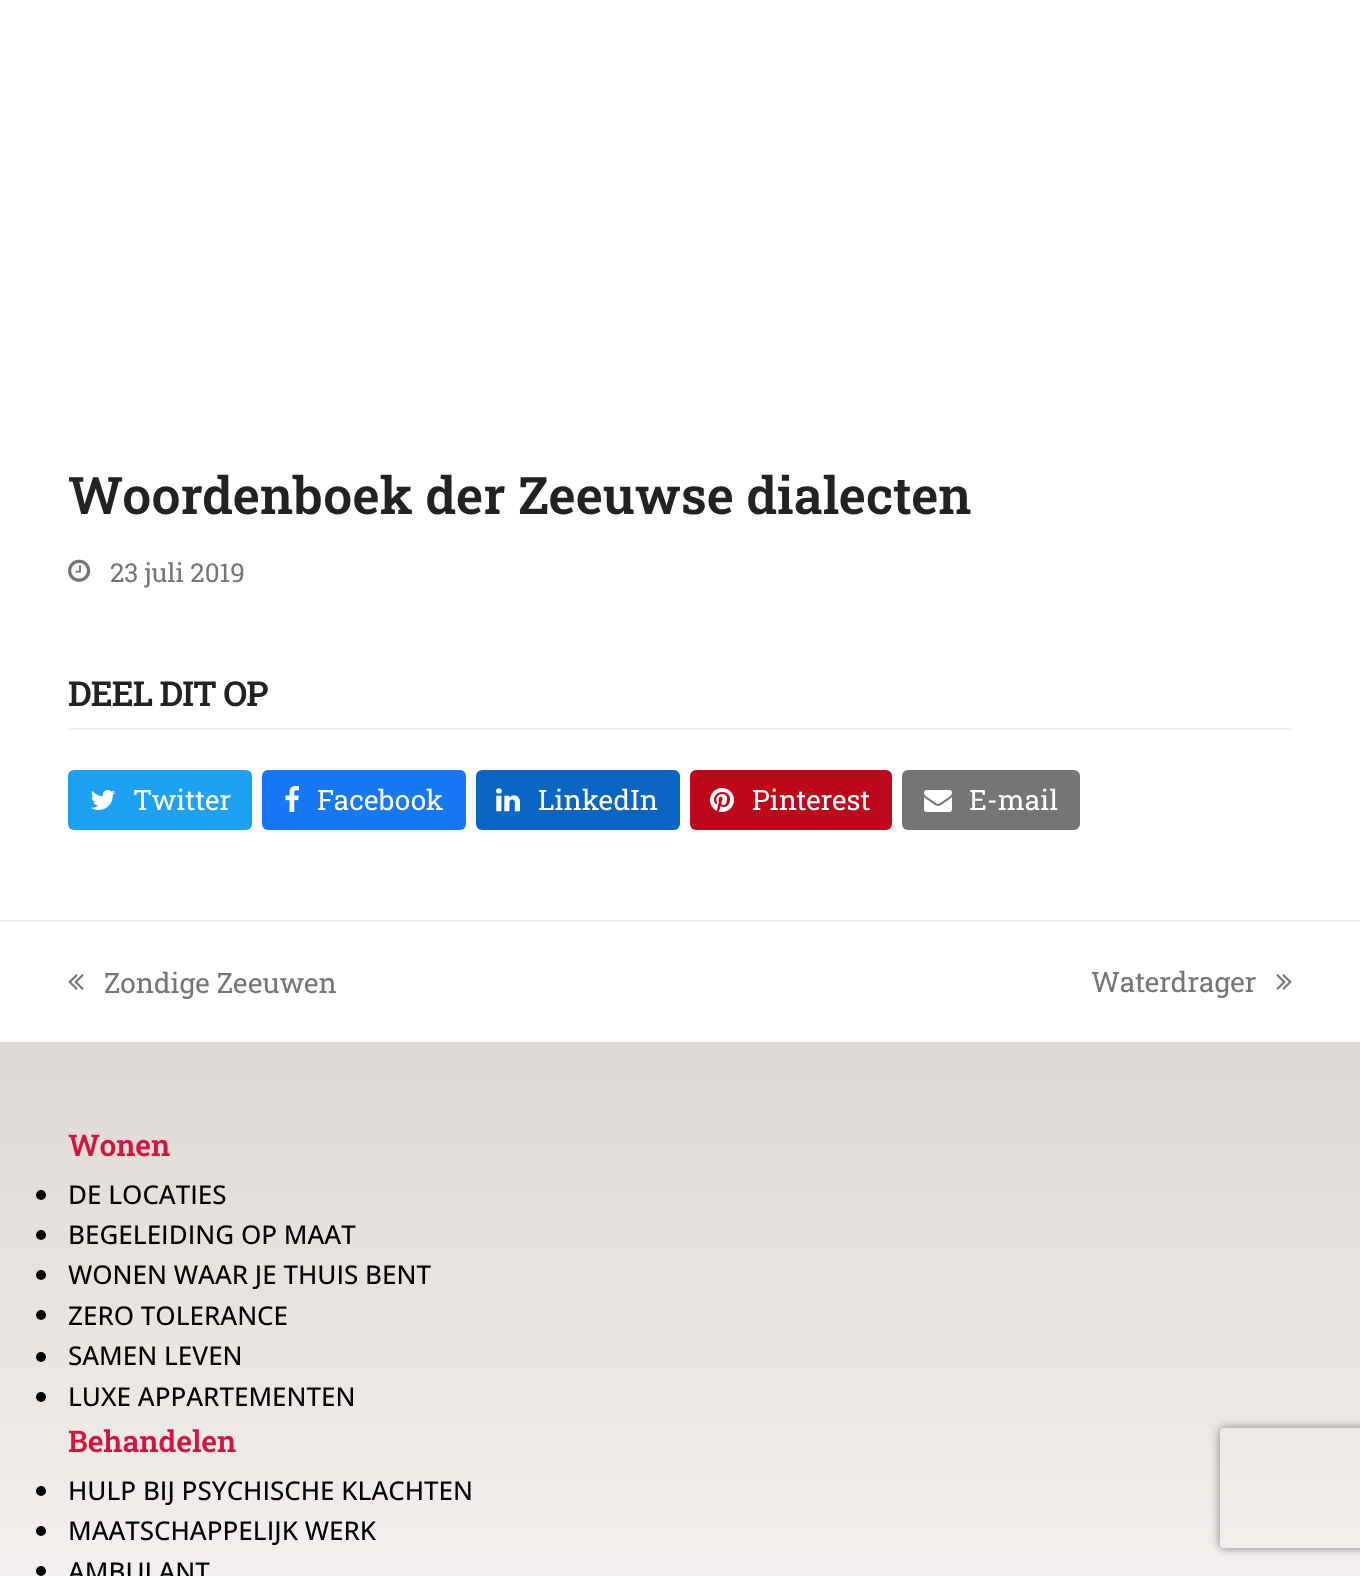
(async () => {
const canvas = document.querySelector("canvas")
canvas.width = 1360
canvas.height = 1576
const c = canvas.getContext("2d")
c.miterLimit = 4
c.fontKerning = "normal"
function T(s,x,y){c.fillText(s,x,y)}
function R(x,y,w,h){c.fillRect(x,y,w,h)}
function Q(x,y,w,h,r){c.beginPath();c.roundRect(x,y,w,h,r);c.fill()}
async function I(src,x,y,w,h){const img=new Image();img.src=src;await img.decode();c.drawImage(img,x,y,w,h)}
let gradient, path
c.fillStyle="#fff"
R(0,0,1360,1576)
c.font="600 51.7px Roboto Slab"
c.fillStyle="#222"
T("Woordenboek der Zeeuwse dialecten",68,514)
await I("1.png",68,559,23,23)
c.font="26px Roboto Slab"
c.fillStyle="#757575"
T("23 juli 2019",110,582)
c.fillStyle="#eee"
R(68,728,1224,2)
c.letterSpacing="-1px"
c.font="600 34.5px Roboto Slab"
c.fillStyle="#222"
T("DEEL DIT OP",68,706)
c.fillStyle="#1da1f2"
Q(68,770,184,60,6)
await I("2.png",90,790,26,20)
c.letterSpacing="0px"
c.font="28px Roboto Slab"
c.fillStyle="#fff"
T("Twitter",133,810)
c.fillStyle="#1877f2"
Q(262,770,204,60,6)
await I("3.png",285,786,14,26)
c.fillStyle="#fff"
T("Facebook",317,810)
c.fillStyle="#0a66c2"
Q(476,770,204,60,6)
await I("4.png",496,788,24,24)
c.fillStyle="#fff"
T("LinkedIn",538,810)
c.fillStyle="#bd081c"
Q(690,770,202,60,6)
await I("5.png",710,788,24,24)
c.fillStyle="#fff"
T("Pinterest",752,810)
c.fillStyle="#757575"
Q(902,770,178,60,6)
await I("6.png",924,790,28,22)
c.fillStyle="#fff"
T("E-mail",969,810)
c.fillStyle="#eee"
R(0,920,1360,2)
await I("7.png",68,974,16,16)
c.fillStyle="#757575"
T("Zondige Zeeuwen",104,993)
T("Waterdrager",1091,992)
await I("8.png",1276,974,16,16)
gradient = c.createLinearGradient(0,1042,0,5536)
gradient.addColorStop(0,"#dfd8d5")
gradient.addColorStop(.2,"#fff")
gradient.addColorStop(1,"#fff")
c.fillStyle = gradient
R(0,1042,1360,534)
c.font="600 30px Roboto Slab"
c.fillStyle="#d0163f"
T("Wonen",68,1156)
c.fillStyle="#000"
c.beginPath()
c.arc(41,1195,5,0,7)
c.fill()
c.font="500 26px Open Sans"
T("DE LOCATIES",68,1204)
c.beginPath()
c.arc(41,1235,5,0,7)
c.fill()
T("BEGELEIDING OP MAAT",68,1244)
c.beginPath()
c.arc(41,1275,5,0,7)
c.fill()
T("WONEN WAAR JE THUIS BENT",68,1284)
c.beginPath()
c.arc(41,1315,5,0,7)
c.fill()
T("ZERO TOLERANCE",68,1325)
c.beginPath()
c.arc(41,1357,5,0,7)
c.fill()
T("SAMEN LEVEN",68,1365)
c.beginPath()
c.arc(41,1397,5,0,7)
c.fill()
T("LUXE APPARTEMENTEN",68,1406)
c.font="600 30px Roboto Slab"
c.fillStyle="#d0163f"
T("Behandelen",68,1452)
c.fillStyle="#000"
c.beginPath()
c.arc(41,1491,5,0,7)
c.fill()
c.font="500 26px Open Sans"
T("HULP BIJ PSYCHISCHE KLACHTEN",68,1500)
c.beginPath()
c.arc(41,1531,5,0,7)
c.fill()
T("MAATSCHAPPELIJK WERK",68,1540)
c.beginPath()
c.arc(41,1571,5,0,7)
c.fill()
T("AMBULANT",68,1581)
c.save()
path = new Path2D("M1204 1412h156v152h-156zm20 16h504c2 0 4 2 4 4v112c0 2-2 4-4 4h-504c-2 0-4-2-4-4v-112c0-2 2-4 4-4z")
c.clip(path,"evenodd")
c.fillStyle="#808080"
c.filter="blur(5px)"
c.beginPath()
c.roundRect(1220,1428,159,120,4)
c.fill()
c.filter="none"
c.restore()
})()
